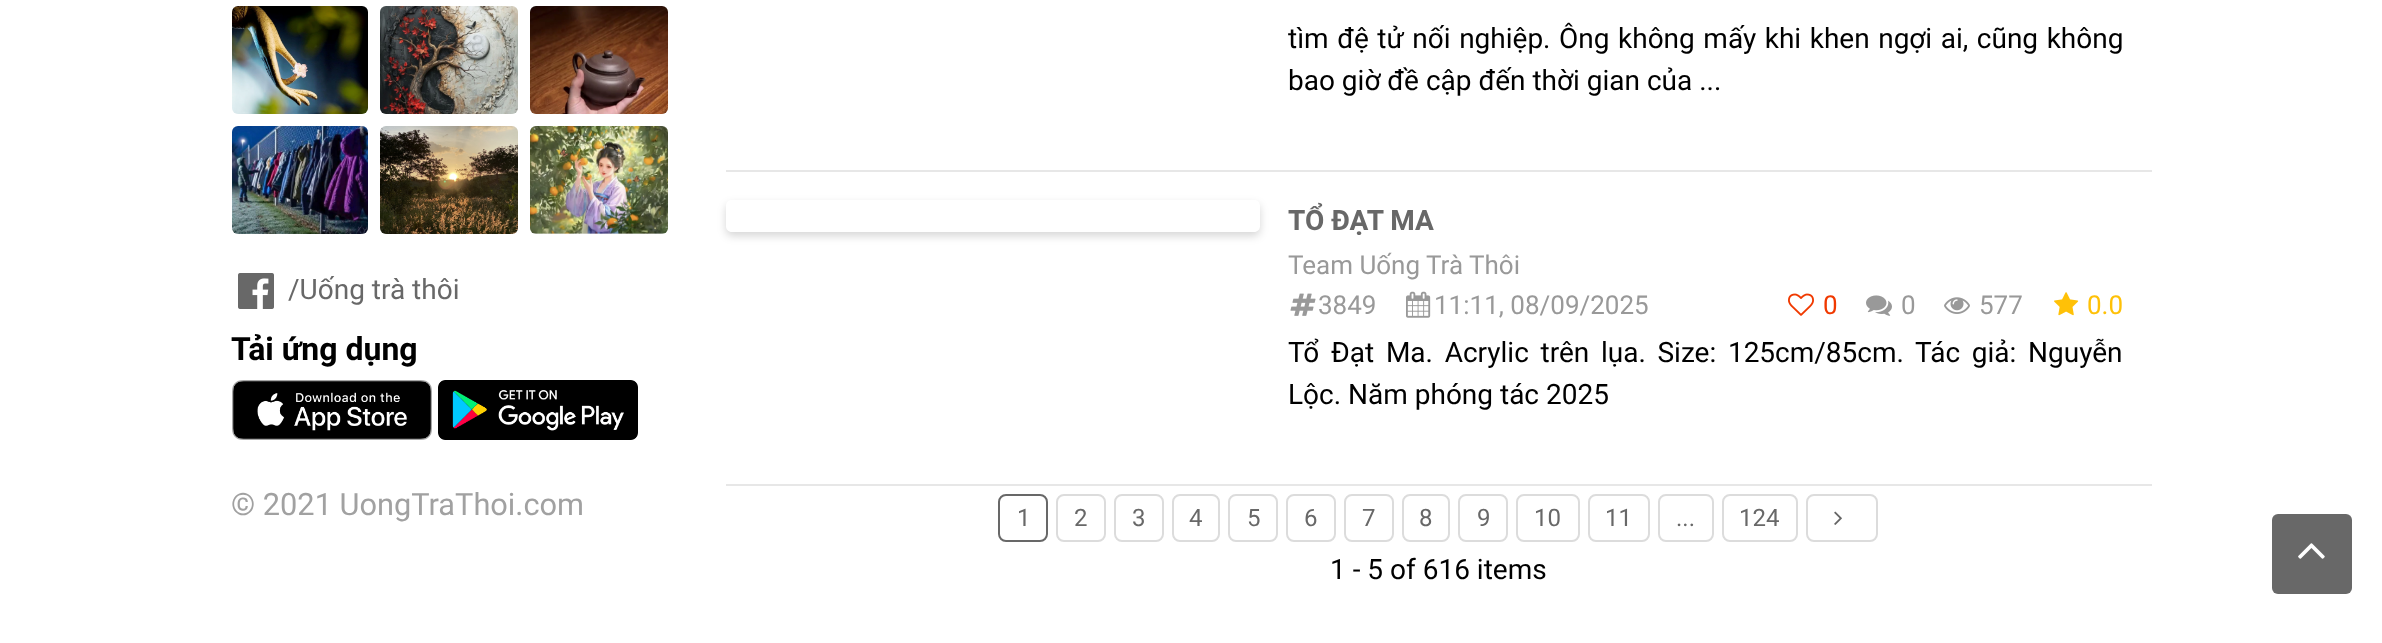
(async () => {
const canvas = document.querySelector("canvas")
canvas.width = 2382
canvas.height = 643
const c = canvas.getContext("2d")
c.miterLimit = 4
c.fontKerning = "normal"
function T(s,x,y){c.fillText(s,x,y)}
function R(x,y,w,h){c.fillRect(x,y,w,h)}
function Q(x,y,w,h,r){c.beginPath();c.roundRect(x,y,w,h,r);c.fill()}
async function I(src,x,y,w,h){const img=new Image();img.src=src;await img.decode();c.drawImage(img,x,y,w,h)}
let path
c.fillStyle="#fff"
R(0,0,2382,643)
await I("1.png",232,6,136,108)
await I("2.png",380,6,138,108)
await I("3.png",530,6,138,108)
await I("4.png",232,126,136,108)
await I("5.png",380,126,138,108)
await I("6.png",530,126,138,108)
await I("7.png",238,273,36,36)
c.font="28px Roboto"
c.fillStyle="#686868"
T("/Uống trà thôi",288,299)
c.font="bold 32px Roboto"
c.fillStyle="#000"
T("Tải ứng dụng",231,360)
await I("8.png",232,380,200,60)
await I("9.png",438,380,200,60)
c.font="30.75px Roboto"
c.fillStyle="#a1a1a1"
T("© 2021 UongTraThoi.com",231,515)
c.fillStyle="#e7e7e7"
R(726,170,1426,2)
c.wordSpacing="1.6px"
c.font="28px Roboto"
c.fillStyle="#000"
T("tìm đệ tử nối nghiệp. Ông không mấy khi khen ngợi ai, cũng không",1288,48)
c.wordSpacing="0px"
T("bao giờ đề cập đến thời gian của ...",1288,90)
c.fillStyle="#e7e7e7"
R(726,484,1426,2)
c.save()
path = new Path2D("M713 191h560v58h-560zm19 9h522c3.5 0 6 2.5 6 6v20c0 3.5-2.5 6-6 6h-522c-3.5 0-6-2.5-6-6v-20c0-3.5 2.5-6 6-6z")
c.clip(path,"evenodd")
c.fillStyle="#00000029"
c.filter="blur(4px)"
c.beginPath()
c.roundRect(726,204,534,32,6)
c.fill()
c.filter="none"
c.restore()
c.font="bold 28px Roboto"
c.fillStyle="#686868"
T("TỔ ĐẠT MA",1288,230)
c.font="26px Roboto"
c.fillStyle="#999"
T("Team Uống Trà Thôi",1288,274)
await I("10.png",1290,293,26,23)
T("3849",1318,314)
await I("11.png",1406,291,25,27)
T("11:11, 08/09/2025",1434,314)
await I("12.png",1788,293,26,23)
c.fillStyle="#f03900"
T("0",1823,314)
await I("13.png",1866,295,26,21)
c.fillStyle="#999"
T("0",1901,314)
await I("14.png",1944,297,26,17)
T("577",1979,314)
await I("15.png",2054,292,25,24)
c.fillStyle="#ffc107"
T("0.0",2087,314)
c.wordSpacing="4.75px"
c.font="28px Roboto"
c.fillStyle="#000"
T("Tổ Đạt Ma. Acrylic trên lụa. Size: 125cm/85cm. Tác giả: Nguyễn",1288,362)
c.wordSpacing="0px"
T("Lộc. Năm phóng tác 2025",1288,404)
c.beginPath()
c.roundRect(999,495,48,46,7)
c.strokeStyle="#686868"
c.lineWidth=2
c.stroke()
c.font="24px Roboto"
c.fillStyle="#686868"
T("1",1017,526)
c.beginPath()
c.roundRect(1057,495,48,46,7)
c.strokeStyle="#dcdcdc"
c.stroke()
T("2",1074,526)
c.beginPath()
c.roundRect(1115,495,48,46,7)
c.stroke()
T("3",1132,526)
c.beginPath()
c.roundRect(1173,495,46,46,7)
c.stroke()
T("4",1189,526)
c.beginPath()
c.roundRect(1229,495,48,46,7)
c.stroke()
T("5",1247,526)
c.beginPath()
c.roundRect(1287,495,48,46,7)
c.stroke()
T("6",1304,526)
c.beginPath()
c.roundRect(1345,495,48,46,7)
c.stroke()
T("7",1362,526)
c.beginPath()
c.roundRect(1403,495,46,46,7)
c.stroke()
T("8",1419,526)
c.beginPath()
c.roundRect(1459,495,48,46,7)
c.stroke()
T("9",1477,526)
c.beginPath()
c.roundRect(1517,495,62,46,7)
c.stroke()
T("10",1534,526)
c.beginPath()
c.roundRect(1589,495,60,46,7)
c.stroke()
T("11",1605,526)
c.beginPath()
c.roundRect(1659,495,54,46,7)
c.stroke()
T("...",1676,526)
c.beginPath()
c.roundRect(1723,495,74,46,7)
c.stroke()
T("124",1739,526)
c.beginPath()
c.roundRect(1807,495,70,46,7)
c.stroke()
await I("16.png",1834,511,8,14)
c.font="28px Roboto"
c.fillStyle="#000"
T("1 - 5 of 616 items",1330,579)
c.fillStyle="#686868"
Q(2272,514,80,80,6)
await I("17.png",2298,543,27,16)
})()
